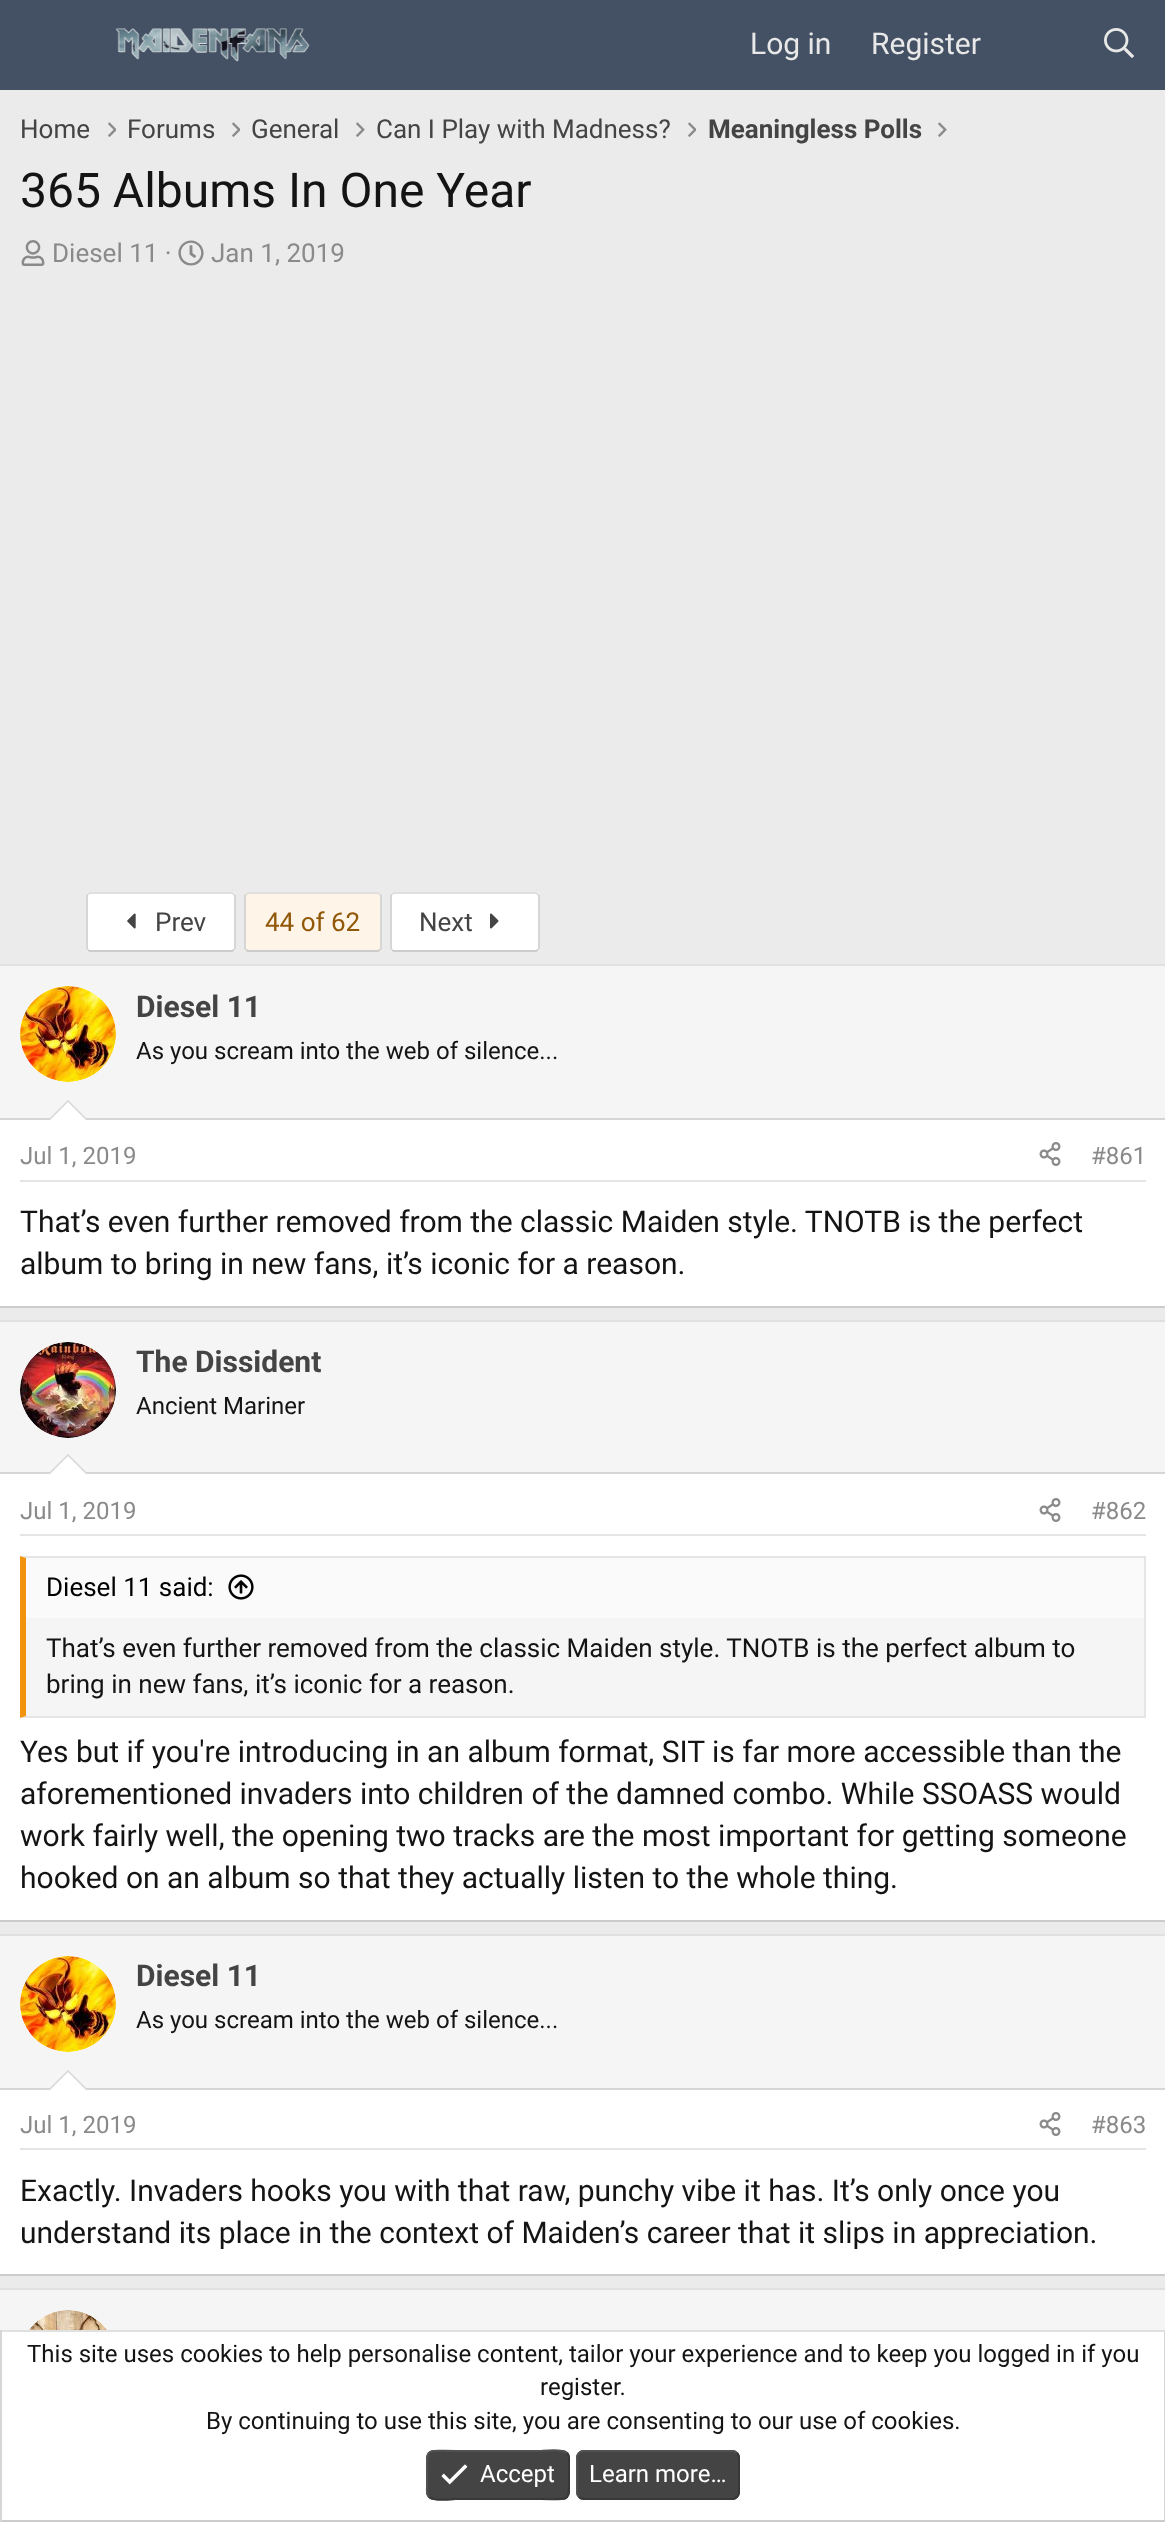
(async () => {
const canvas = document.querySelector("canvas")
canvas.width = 1165
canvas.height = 2522
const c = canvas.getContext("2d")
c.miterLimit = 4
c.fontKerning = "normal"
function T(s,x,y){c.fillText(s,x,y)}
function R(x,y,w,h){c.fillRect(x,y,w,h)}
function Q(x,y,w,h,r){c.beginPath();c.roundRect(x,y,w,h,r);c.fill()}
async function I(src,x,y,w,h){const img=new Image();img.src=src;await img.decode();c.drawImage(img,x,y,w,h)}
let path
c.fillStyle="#ebebeb"
R(0,0,1165,2522)
c.fillStyle="#445164"
R(0,0,1165,90)
await I("1.png",115,28,195,34)
c.font="30px Roboto"
c.fillStyle="#e8e8e8"
T("Log in",750,54)
T("Register",871,54)
await I("2.png",1104,28,30,30)
c.font="26px Roboto"
c.fillStyle="#444"
T("Home",20,138)
await I("3.png",108,122,8,15)
T("Forums",127,138)
await I("3.png",232,122,8,15)
T("General",251,138)
await I("4.png",356,122,9,15)
T("Can I Play with Madness?",376,138)
await I("3.png",688,122,8,15)
c.font="bold 26px Roboto"
T("Meaningless Polls",708,138)
await I("4.png",938,122,9,15)
c.font="48px Roboto"
c.fillStyle="#141414"
T("365 Albums In One Year",20,207)
await I("5.png",21,240,24,26)
c.font="26px Roboto"
c.fillStyle="#8a8a8a"
T("Diesel 11 ·",52,262)
await I("6.png",178,240,26,26)
T("Jan 1, 2019",211,262)
c.fillStyle="#fff"
Q(86,892,150,60,4)
path = new Path2D("M88 894l1.5-1h119h23.5l2 1")
c.strokeStyle="#e0e0e0"
c.lineWidth=2
c.stroke(path)
path = new Path2D("M234 894l1 1.5v53l-1 1.5")
c.strokeStyle="#d6d6d6"
c.stroke(path)
path = new Path2D("M234 950l-2 1h-142.5l-1.5-1")
c.strokeStyle="#ccc"
c.stroke(path)
path = new Path2D("M88 950l-1-1.5v-53l1-1.5")
c.strokeStyle="#d6d6d6"
c.stroke(path)
await I("7.png",127,913,9,16)
c.fillStyle="#444"
T("Prev",155,931)
c.fillStyle="#fef4e7"
Q(244,892,138,60,4)
path = new Path2D("M246 894l2-1h130l2 1")
c.strokeStyle="#e0e0e0"
c.stroke(path)
path = new Path2D("M380 894l1 1.5v53l-1 1.5")
c.strokeStyle="#d6d6d6"
c.stroke(path)
path = new Path2D("M380 950l-2 1h-130l-2-1")
c.strokeStyle="#ccc"
c.stroke(path)
path = new Path2D("M246 950l-1-1.5v-53l1-1.5")
c.strokeStyle="#d6d6d6"
c.stroke(path)
c.fillStyle="#915808"
T("44 of 62",265,931)
c.fillStyle="#fff"
Q(390,892,150,60,4)
path = new Path2D("M392 894l1.5-1h119h23.5l2 1")
c.strokeStyle="#e0e0e0"
c.stroke(path)
path = new Path2D("M538 894l1 1.5v53l-1 1.5")
c.strokeStyle="#d6d6d6"
c.stroke(path)
path = new Path2D("M538 950l-2 1h-142.5l-1.5-1")
c.strokeStyle="#ccc"
c.stroke(path)
path = new Path2D("M392 950l-1-1.5v-53l1-1.5")
c.strokeStyle="#d6d6d6"
c.stroke(path)
c.fillStyle="#444"
T("Next",419,931)
await I("8.png",490,913,9,16)
c.fillStyle="#fff"
R(0,1120,1165,186)
c.fillStyle="#e0e0e0"
R(0,964,1165,2)
c.fillStyle="#ccc"
R(0,1306,1165,2)
c.fillStyle="#f5f5f5"
R(0,966,1165,152)
c.fillStyle="#d6d6d6"
R(0,1118,1165,2)
c.fillStyle="#fff"
c.beginPath()
c.arc(68,1034,48,0,7)
c.fill()
await I("9.png",20,986,96,96)
c.font="bold 30px Roboto"
c.fillStyle="#444"
T("Diesel 11",136,1017)
c.font="24px Roboto"
c.fillStyle="#141414"
T("As you scream into the web of silence...",136,1059)
c.fillStyle="#d6d6d6"
path = new Path2D("M88 1120h-40l20-20z")
c.fill(path)
c.fillStyle="#fff"
path = new Path2D("M86 1120h-36l18-18z")
c.fill(path)
c.fillStyle="#e5e5e5"
R(20,1180,1126,2)
c.fillStyle="#8a8a8a"
T("Jul 1, 2019",20,1164)
await I("10.png",1039,1142,22,24)
T("#861",1091,1164)
c.font="30px Roboto"
c.fillStyle="#141414"
T("That’s even further removed from the classic Maiden style. TNOTB is the perfect",20,1232)
T("album to bring in new fans, it’s iconic for a reason.",20,1274)
c.fillStyle="#fff"
R(0,1474,1165,446)
c.fillStyle="#e0e0e0"
R(0,1320,1165,2)
c.fillStyle="#ccc"
R(0,1920,1165,2)
c.fillStyle="#f5f5f5"
R(0,1322,1165,150)
c.fillStyle="#d6d6d6"
R(0,1472,1165,2)
c.fillStyle="#fff"
c.beginPath()
c.arc(68,1390,48,0,7)
c.fill()
await I("11.png",20,1342,96,96)
c.font="bold 30px Roboto"
c.fillStyle="#444"
T("The Dissident",136,1372)
c.font="24px Roboto"
c.fillStyle="#141414"
T("Ancient Mariner",136,1414)
c.fillStyle="#d6d6d6"
path = new Path2D("M88 1474h-40l20-20z")
c.fill(path)
c.fillStyle="#fff"
path = new Path2D("M86 1474h-36l18-18z")
c.fill(path)
c.fillStyle="#e5e5e5"
R(20,1534,1126,2)
c.fillStyle="#8a8a8a"
T("Jul 1, 2019",20,1519)
await I("10.png",1039,1498,22,24)
T("#862",1091,1519)
c.fillStyle="#f5f5f5"
R(26,1618,1118,98)
c.fillStyle="#e5e5e5"
path = new Path2D("M20 1556h1126l-2 2h-1118z")
c.fill(path)
R(1144,1556,2,162)
path = new Path2D("M1146 1718h-1126l6-2h1118z")
c.fill(path)
c.fillStyle="#f2930d"
path = new Path2D("M20 1718v-162l6 2v158z")
c.fill(path)
c.fillStyle="#fafafa"
R(26,1558,1118,60)
c.font="26px Roboto"
c.fillStyle="#000"
T("Diesel 11 said:",46,1596)
await I("12.png",228,1574,26,26)
c.fillStyle="#141414"
T("That’s even further removed from the classic Maiden style. TNOTB is the perfect album to",46,1657)
T("bring in new fans, it’s iconic for a reason.",46,1693)
c.font="30px Roboto"
T("Yes but if you're introducing in an album format, SIT is far more accessible than the",20,1762)
T("aforementioned invaders into children of the damned combo. While SSOASS would",20,1804)
T("work fairly well, the opening two tracks are the most important for getting someone",20,1846)
T("hooked on an album so that they actually listen to the whole thing.",20,1888)
c.fillStyle="#fff"
R(0,2090,1165,184)
c.fillStyle="#e0e0e0"
R(0,1934,1165,2)
c.fillStyle="#ccc"
R(0,2274,1165,2)
c.fillStyle="#f5f5f5"
R(0,1936,1165,152)
c.fillStyle="#d6d6d6"
R(0,2088,1165,2)
c.fillStyle="#fff"
c.beginPath()
c.arc(68,2004,48,0,7)
c.fill()
await I("13.png",20,1956,96,96)
c.font="bold 30px Roboto"
c.fillStyle="#444"
T("Diesel 11",136,1986)
c.font="24px Roboto"
c.fillStyle="#141414"
T("As you scream into the web of silence...",136,2028)
c.fillStyle="#d6d6d6"
path = new Path2D("M88 2090h-40l20-20z")
c.fill(path)
c.fillStyle="#fff"
path = new Path2D("M86 2090h-36l18-18z")
c.fill(path)
c.fillStyle="#e5e5e5"
R(20,2148,1126,2)
c.fillStyle="#8a8a8a"
T("Jul 1, 2019",20,2133)
await I("10.png",1039,2112,22,24)
T("#863",1091,2133)
c.font="30px Roboto"
c.fillStyle="#141414"
T("Exactly. Invaders hooks you with that raw, punchy vibe it has. It’s only once you",20,2201)
T("understand its place in the context of Maiden’s career that it slips in appreciation.",20,2243)
c.fillStyle="#e0e0e0"
R(0,2288,1165,2)
c.fillStyle="#f5f5f5"
R(0,2290,1165,40)
c.fillStyle="#fff"
c.beginPath()
c.arc(68,2358,48,0,7)
c.fill()
await I("14.png",29,2310,78,20)
R(2,2332,1162,188)
c.fillStyle="#e0e0e0"
R(0,2330,1165,2)
c.fillStyle="#d6d6d6"
R(1164,2330,1,192)
c.fillStyle="#ccc"
R(0,2520,1165,2)
c.fillStyle="#d6d6d6"
R(0,2330,2,192)
c.font="24px Roboto"
c.fillStyle="#141414"
T("This site uses cookies to help personalise content, tailor your experience and to keep you logged in if you",27,2362)
T("register.",540,2395)
T("By continuing to use this site, you are consenting to our use of cookies.",206,2429)
c.fillStyle="#444"
Q(426,2450,144,50,8)
path = new Path2D("M567 2453c3 3 2 7 2 10.5v11.5c0 28.5 2.5 24-28.5 24h-85c-2 0-21 3-26.5-2")
c.strokeStyle="#373737"
c.stroke(path)
path = new Path2D("M429 2497c-3-3-2-7-2-10.5v-11.5c0-28.5-2.5-24 28.5-24h85c2 0 21-3 26.5 2")
c.strokeStyle="#515151"
c.stroke(path)
await I("15.png",441,2464,27,21)
c.fillStyle="#fff"
T("Accept",480,2482)
c.fillStyle="#444"
Q(576,2450,164,50,8)
path = new Path2D("M737 2453c1.5 1.5 2 3 2 5v34c0 2-.5 3.5-2 5c-1.5 1.5-3 2-5 2h-148c-2 0-3.5-.5-5-2")
c.strokeStyle="#373737"
c.stroke(path)
path = new Path2D("M579 2497c-1.5-1.5-2-3-2-5v-34c0-2 .5-3.5 2-5c1.5-1.5 3-2 5-2h148c2 0 3.5 .5 5 2")
c.strokeStyle="#515151"
c.stroke(path)
c.fillStyle="#fff"
T("Learn more…",589,2482)
})()
